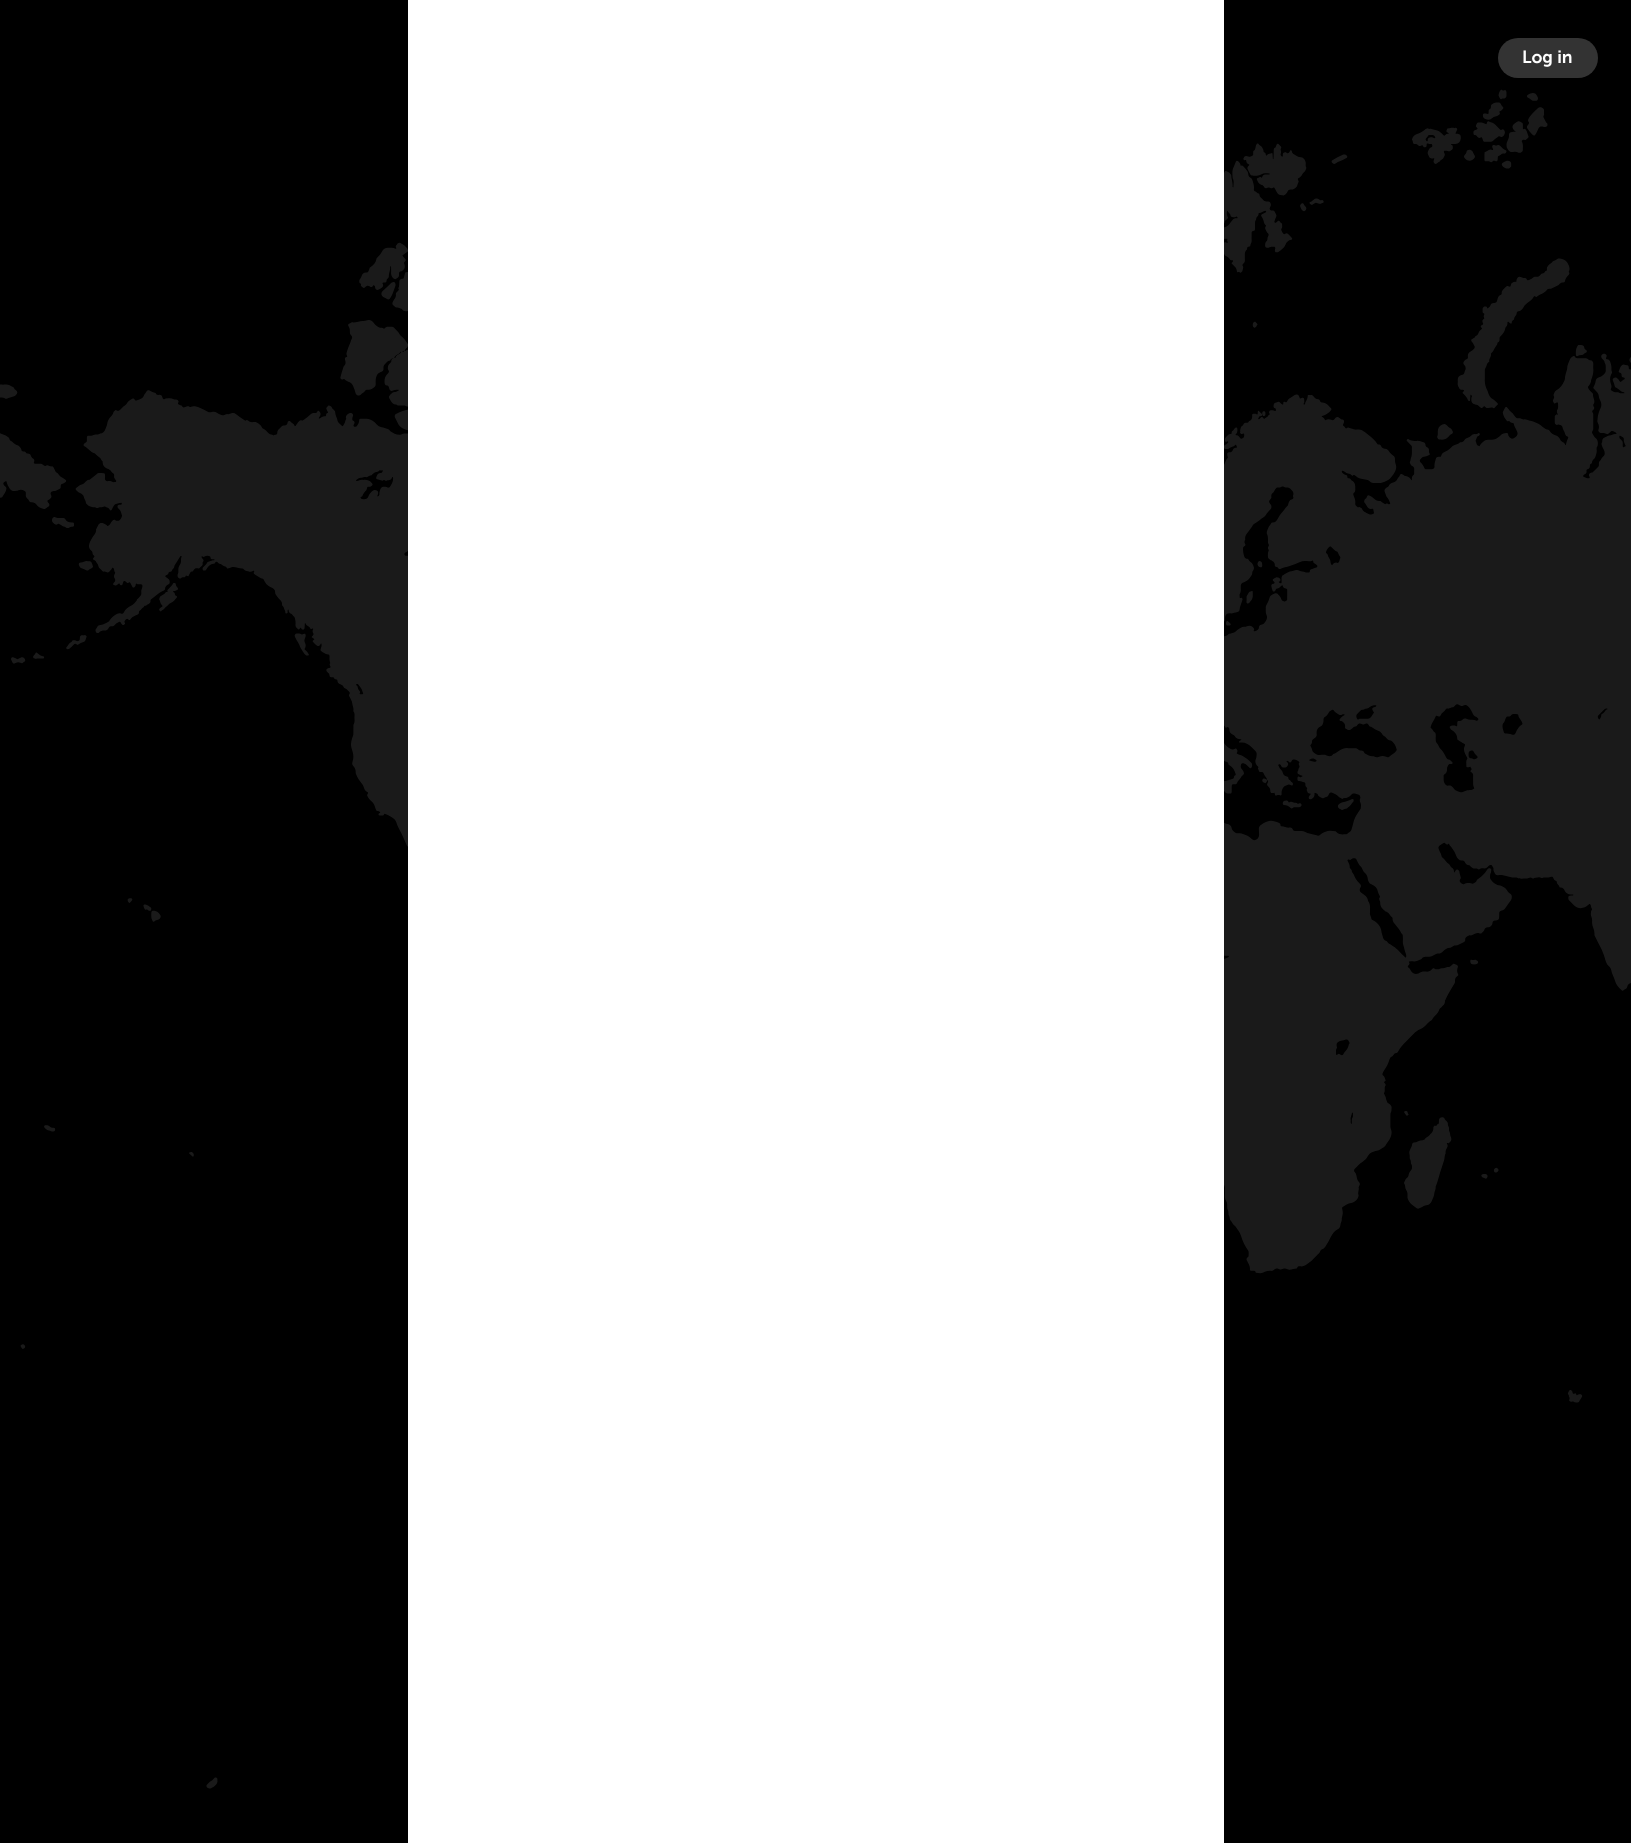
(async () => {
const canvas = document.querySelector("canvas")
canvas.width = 1631
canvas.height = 1843
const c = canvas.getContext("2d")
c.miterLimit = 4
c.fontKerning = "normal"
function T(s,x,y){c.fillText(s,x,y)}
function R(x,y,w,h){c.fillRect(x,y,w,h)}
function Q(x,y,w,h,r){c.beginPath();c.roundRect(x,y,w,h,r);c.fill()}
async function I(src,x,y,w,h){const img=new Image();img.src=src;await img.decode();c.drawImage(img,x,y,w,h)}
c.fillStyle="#000"
R(0,0,1631,1843)
await I("1.png",0,89,1631,1700)
c.fillStyle="#fff"
R(408,0,816,1843)
c.fillStyle="#333"
Q(1498,38,100,40,20)
c.font="600 17.5px Museo Sans"
c.fillStyle="#fff"
T("Log in",1522,63)
})()
